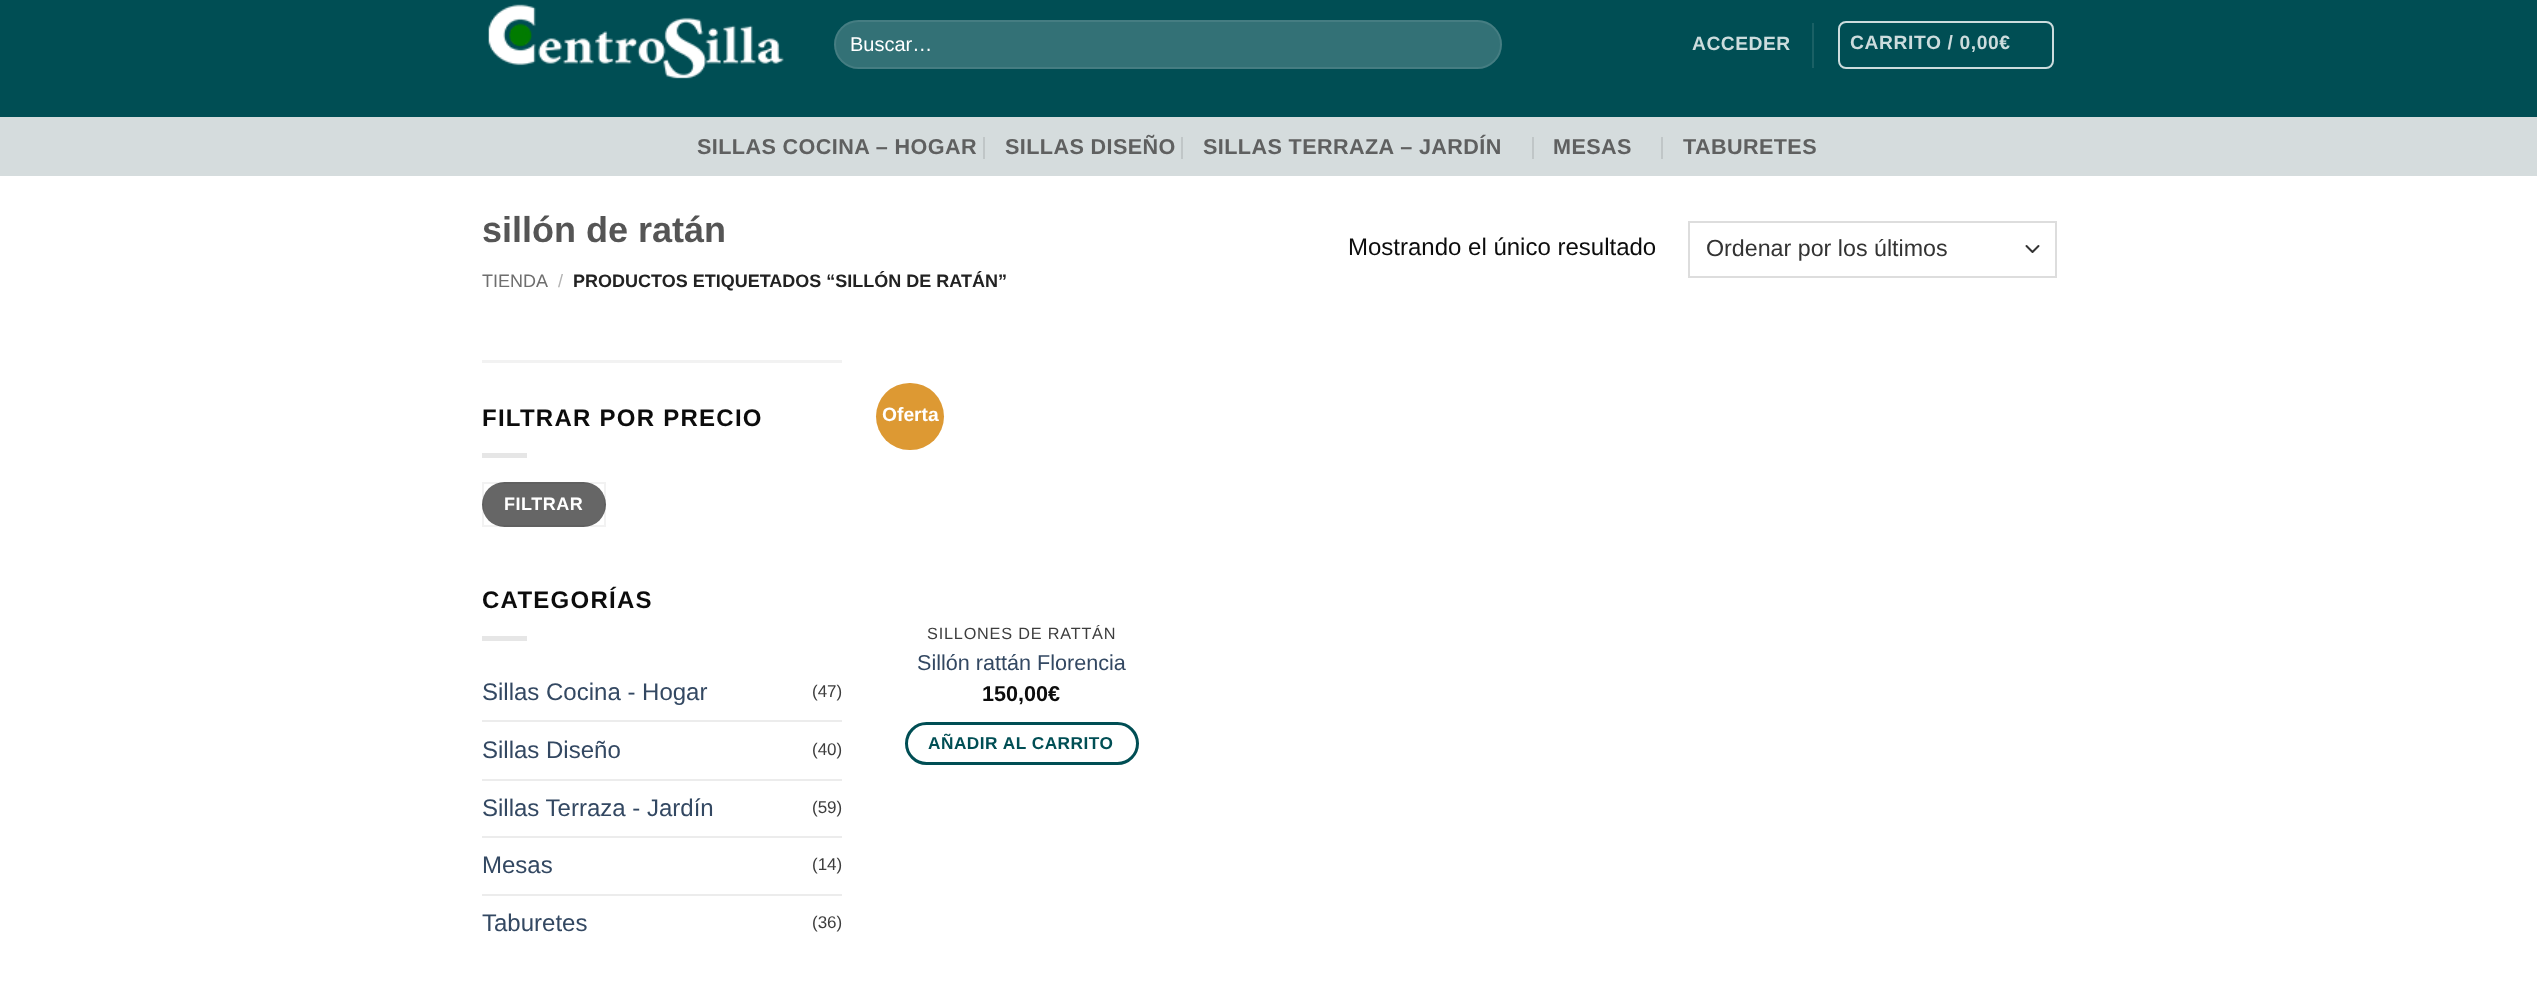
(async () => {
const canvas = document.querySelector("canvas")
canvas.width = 2537
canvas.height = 986
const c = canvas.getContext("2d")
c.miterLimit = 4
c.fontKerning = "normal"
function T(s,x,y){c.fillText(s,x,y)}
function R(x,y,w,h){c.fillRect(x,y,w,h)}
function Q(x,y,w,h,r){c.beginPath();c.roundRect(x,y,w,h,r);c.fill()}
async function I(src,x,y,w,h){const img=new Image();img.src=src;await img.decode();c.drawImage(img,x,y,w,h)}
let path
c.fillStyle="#fff"
R(0,0,2537,986)
c.fillStyle="#004e54"
R(0,0,2537,117)
await I("1.png",488,4,296,75)
c.fillStyle="#337176"
Q(834,20,668,49,24.5)
c.beginPath()
c.roundRect(835,21,666,47,23.5)
c.strokeStyle="#ffffff17"
c.lineWidth=2
c.stroke()
c.font="20px Liberation Sans"
c.fillStyle="#fff"
T("Buscar…",850,51)
c.letterSpacing="0.5px"
c.font="bold 19.25px Liberation Sans"
c.fillStyle="#ccdcdd"
T("ACCEDER",1692,50)
c.fillStyle="#1a6065"
R(1812,23,2,45)
c.beginPath()
c.roundRect(1839,22,214,46,7)
c.strokeStyle="#ccdcdd"
c.stroke()
c.letterSpacing="0.6px"
c.fillStyle="#ccdcdd"
T("CARRITO / 0,00€",1850,49)
c.fillStyle="#d5dcdd"
R(0,117,2537,59)
c.letterSpacing="0.4px"
c.font="bold 21.6px Liberation Sans"
c.fillStyle="#5f6060"
T("SILLAS COCINA – HOGAR",697,154)
c.fillStyle="#c0c6c7"
R(983,137,2,22)
c.fillStyle="#5f6060"
T("SILLAS DISEÑO",1005,154)
c.fillStyle="#c0c6c7"
R(1181,137,2,22)
c.fillStyle="#5f6060"
T("SILLAS TERRAZA – JARDÍN",1203,154)
c.fillStyle="#c0c6c7"
R(1532,137,2,22)
c.fillStyle="#5f6060"
T("MESAS",1553,154)
c.fillStyle="#c0c6c7"
R(1661,137,2,22)
c.fillStyle="#5f6060"
T("TABURETES",1683,154)
c.letterSpacing="0px"
c.font="bold 36px Liberation Sans"
c.fillStyle="#555"
T("sillón de ratán",482,242)
c.font="18px Liberation Sans"
c.fillStyle="#6e6e6e"
T("TIENDA",482,287)
c.fillStyle="#b2b2b2"
T("/",558,287)
c.font="bold 18px Liberation Sans"
c.fillStyle="#222"
T("PRODUCTOS ETIQUETADOS “SILLÓN DE RATÁN”",573,287)
c.font="24px Liberation Sans"
c.fillStyle="#0c0c0c"
T("Mostrando el único resultado",1348,255)
path = new Path2D("M2026.5 246l6 6l6-6")
c.strokeStyle="#333"
c.lineCap="round"
c.lineJoin="round"
c.stroke(path)
c.strokeStyle="#ddd"
c.lineJoin="miter"
c.strokeRect(1689,222,367,55)
c.font="23.25px Liberation Sans"
c.fillStyle="#333"
T("Ordenar por los últimos",1706,256)
c.fillStyle="#f2f2f2"
R(482,360,360,3)
c.letterSpacing="1.25px"
c.font="bold 24px Liberation Sans"
c.fillStyle="#0c0c0c"
T("FILTRAR POR PRECIO",482,426)
c.fillStyle="#e6e6e6"
R(482,453,45,5)
c.fillStyle="#666"
Q(482,482,124,45,22.5)
c.strokeStyle="#0000000d"
c.strokeRect(483,483,122,43)
c.letterSpacing="0.5px"
c.font="bold 18px Liberation Sans"
c.fillStyle="#fff"
T("FILTRAR",504,510)
c.letterSpacing="1.25px"
c.font="bold 24px Liberation Sans"
c.fillStyle="#0c0c0c"
T("CATEGORÍAS",482,608)
c.fillStyle="#e6e6e6"
R(482,636,45,5)
c.letterSpacing="0px"
c.font="24px Liberation Sans"
c.fillStyle="#334862"
T("Sillas Cocina - Hogar",482,700)
c.font="17px Liberation Sans"
c.fillStyle="#3d3d3d"
T("(47)",812,697)
c.fillStyle="#ececec"
R(482,720,360,2)
c.font="24px Liberation Sans"
c.fillStyle="#334862"
T("Sillas Diseño",482,758)
c.font="17px Liberation Sans"
c.fillStyle="#3d3d3d"
T("(40)",812,755)
c.fillStyle="#ececec"
R(482,779,360,2)
c.font="24px Liberation Sans"
c.fillStyle="#334862"
T("Sillas Terraza - Jardín",482,816)
c.font="17px Liberation Sans"
c.fillStyle="#3d3d3d"
T("(59)",812,813)
c.fillStyle="#ececec"
R(482,836,360,2)
c.font="24px Liberation Sans"
c.fillStyle="#334862"
T("Mesas",482,873)
c.font="17px Liberation Sans"
c.fillStyle="#3d3d3d"
T("(14)",812,870)
c.fillStyle="#ececec"
R(482,894,360,2)
c.font="24px Liberation Sans"
c.fillStyle="#334862"
T("Taburetes",482,931)
c.font="17px Liberation Sans"
c.fillStyle="#3d3d3d"
T("(36)",812,928)
c.fillStyle="#d93"
Q(876,383,68,67,33.5)
c.font="bold 19.25px Liberation Sans"
c.fillStyle="#fff"
T("Oferta",882,421)
c.letterSpacing="0.8px"
c.font="16.25px Liberation Sans"
c.fillStyle="#3d3d3d"
T("SILLONES DE RATTÁN",927,639)
c.letterSpacing="0px"
c.font="21.6px Liberation Sans"
c.fillStyle="#334862"
T("Sillón rattán Florencia",917,670)
c.font="bold 21.6px Liberation Sans"
c.fillStyle="#0c0c0c"
T("150,00€",982,701)
c.beginPath()
c.roundRect(906.5,723.5,231,40,20)
c.strokeStyle="#004e54"
c.lineWidth=3
c.stroke()
c.letterSpacing="0.5px"
c.font="bold 17.25px Liberation Sans"
c.fillStyle="#004e54"
T("AÑADIR AL CARRITO",928,749)
})()
